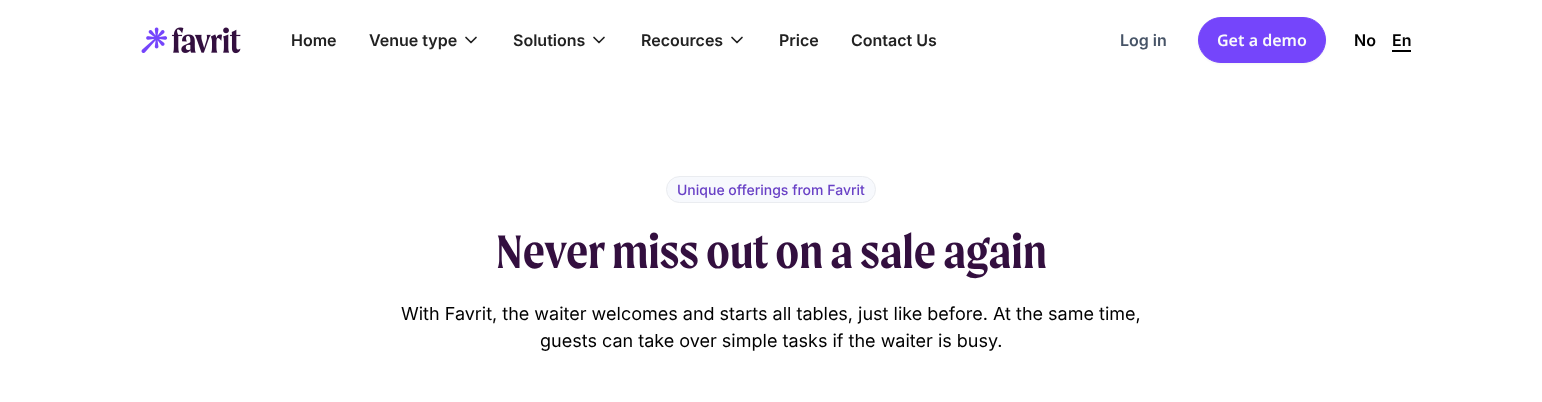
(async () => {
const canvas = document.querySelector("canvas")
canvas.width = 1542
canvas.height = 402
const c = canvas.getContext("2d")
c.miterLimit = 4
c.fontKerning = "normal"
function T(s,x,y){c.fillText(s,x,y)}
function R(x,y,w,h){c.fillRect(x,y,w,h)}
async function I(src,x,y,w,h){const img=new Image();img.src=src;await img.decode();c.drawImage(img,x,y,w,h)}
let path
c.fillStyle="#fff"
R(0,0,1542,402)
await I("1.png",141,27,100,27)
c.font="600 16px Inter"
c.fillStyle="#222"
T("Home",291,46)
T("Venue type",369,46)
path = new Path2D("M466 37.5l5 5l5-5")
c.strokeStyle="#222"
c.lineWidth=1.7
c.lineCap="round"
c.lineJoin="round"
c.stroke(path)
T("Solutions",513,46)
path = new Path2D("M594 37.5l5 5l5-5")
c.stroke(path)
T("Recources",641,46)
path = new Path2D("M732 37.5l5 5l5-5")
c.stroke(path)
T("Price",779,46)
T("Contact Us",851,46)
c.fillStyle="#475467"
T("Log in",1120,46)
c.fillStyle="#1018280d"
c.filter="blur(1px)"
c.beginPath()
c.roundRect(1198,18,128,46,23)
c.fill()
c.filter="none"
c.fillStyle="#7545fb"
c.beginPath()
c.roundRect(1198.5,17.5,127,45,22.5)
c.fill()
c.strokeStyle="#7545fb"
c.lineWidth=1
c.lineJoin="miter"
c.stroke()
c.font="600 16px Noto Sans"
c.fillStyle="#f9fafb"
T("Get a demo",1217,46)
c.font="600 16px Inter"
c.fillStyle="#000"
T("No",1354,46)
T("En",1392,46)
R(1392,50,19,2)
c.fillStyle="#f7f9fd"
c.beginPath()
c.roundRect(666.5,176.5,209,26,13)
c.fill()
c.strokeStyle="#eaecf0"
c.stroke()
c.font="500 14px Inter"
c.fillStyle="#6941c6"
T("Unique offerings from Favrit",677,195)
c.font="600 50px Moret"
c.fillStyle="#330f3f"
T("Never miss out on a sale again",496,268)
c.font="18px Inter"
c.fillStyle="#000"
T("With Favrit, the waiter welcomes and starts all tables, just like before. At the same time,",401,320)
T("guests can take over simple tasks if the waiter is busy.",540,347)
})()
